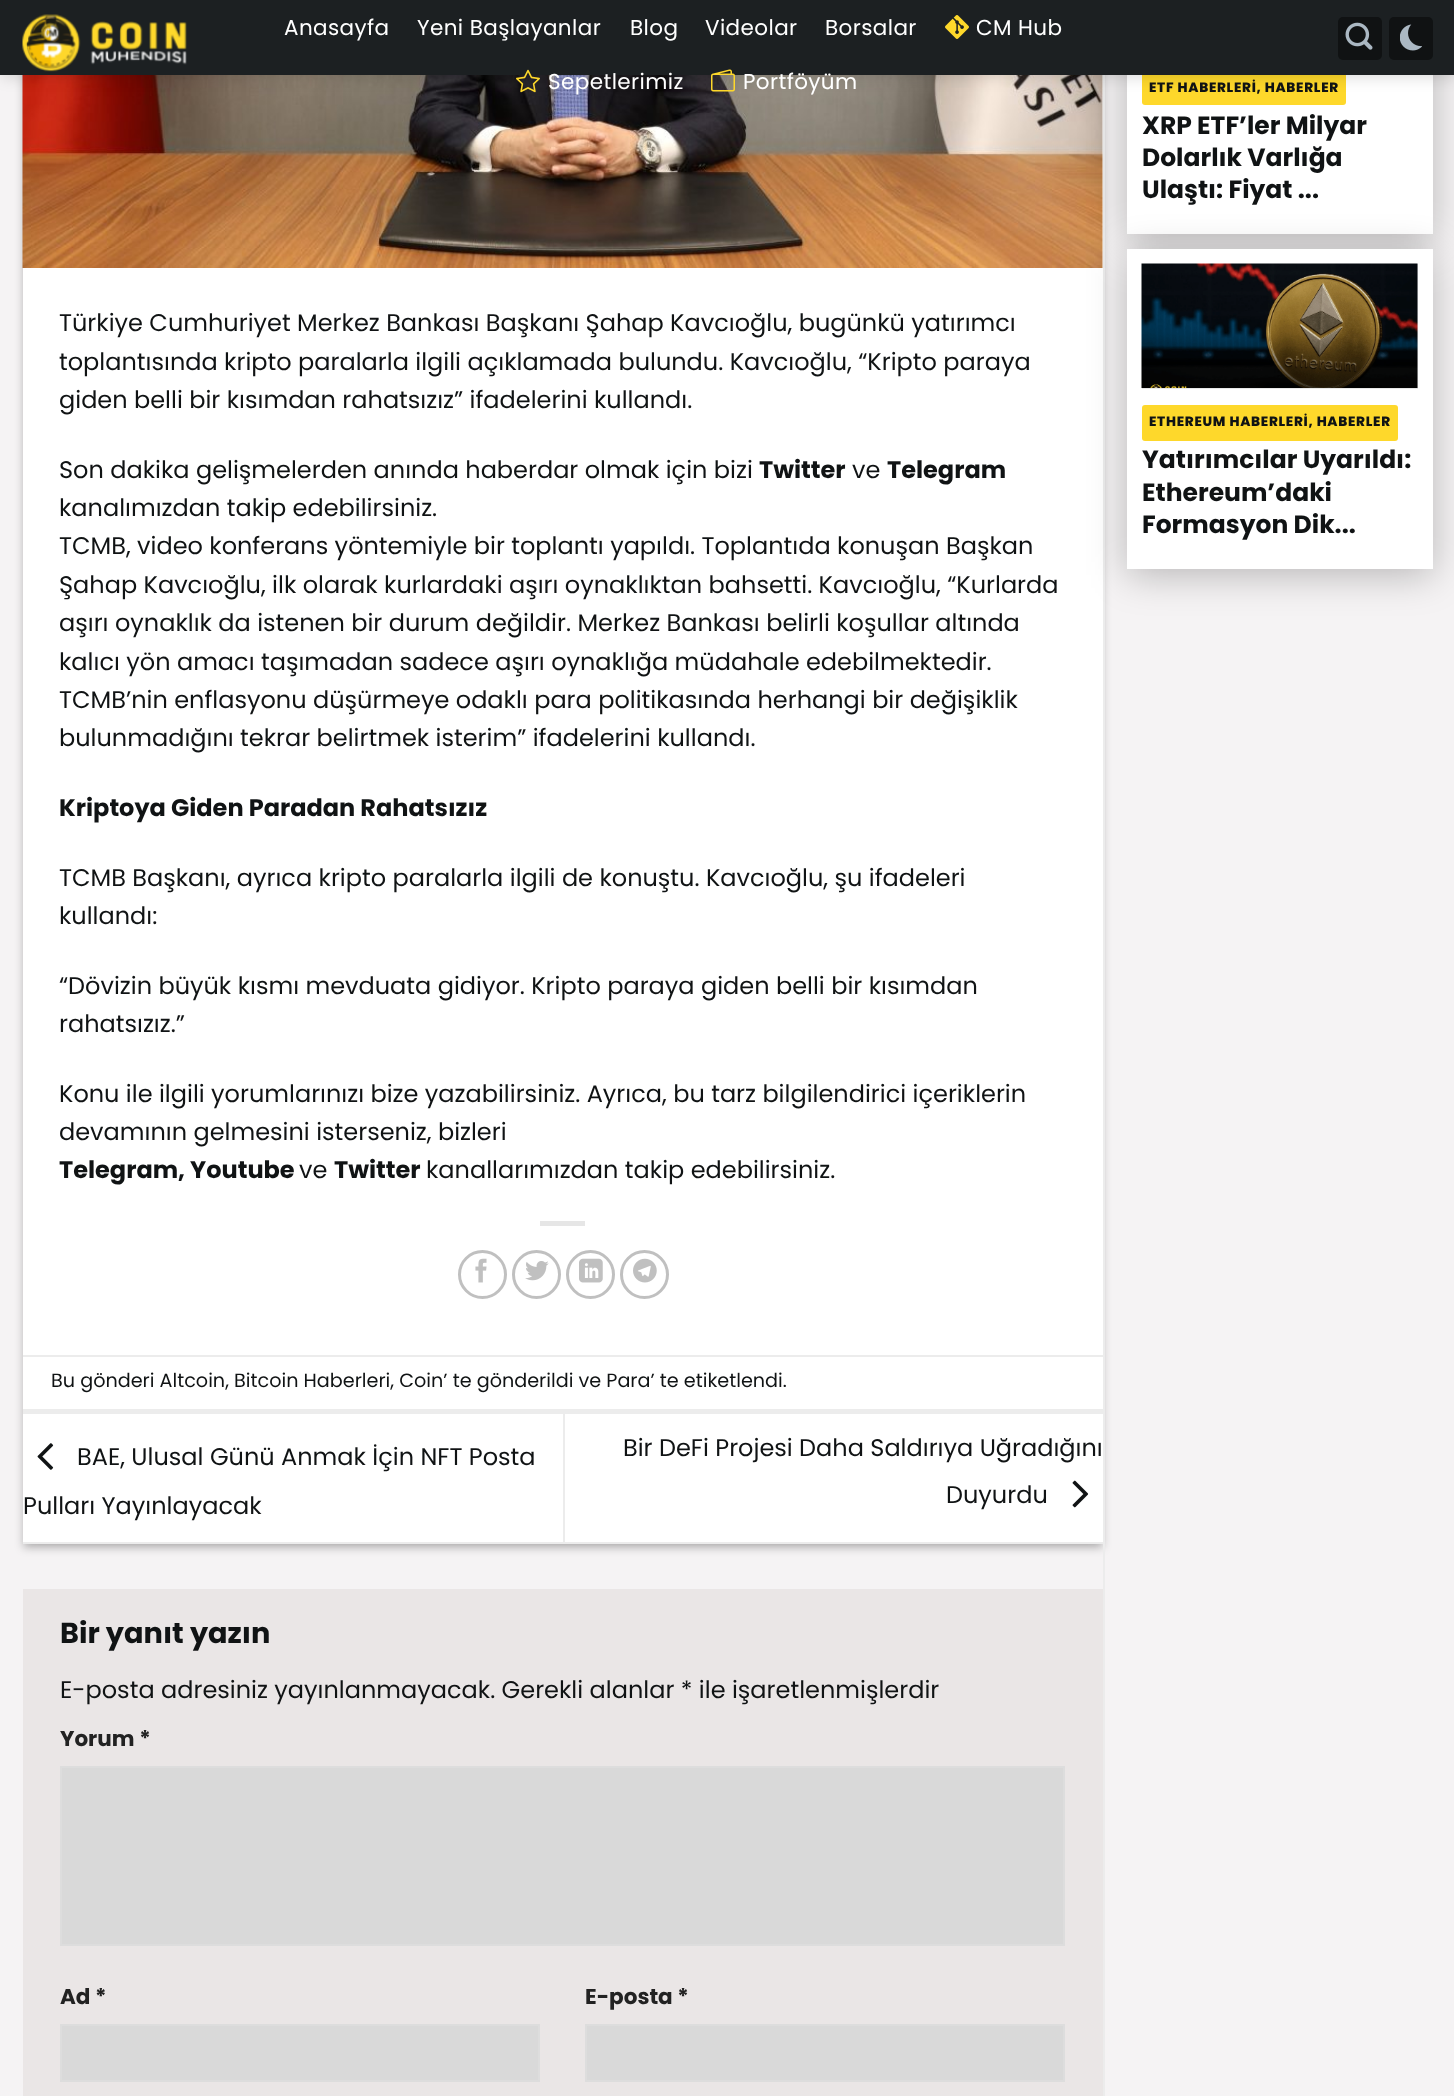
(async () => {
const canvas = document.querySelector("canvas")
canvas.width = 1454
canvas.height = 2096
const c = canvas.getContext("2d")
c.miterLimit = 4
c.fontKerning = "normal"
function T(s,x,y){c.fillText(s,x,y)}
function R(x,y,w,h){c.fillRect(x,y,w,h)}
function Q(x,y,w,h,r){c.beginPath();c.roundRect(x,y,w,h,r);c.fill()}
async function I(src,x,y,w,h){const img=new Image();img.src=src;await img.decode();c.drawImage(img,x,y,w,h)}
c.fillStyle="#f5f3f4"
R(0,0,1454,2096)
c.fillStyle="#0000003b"
c.filter="blur(4.5px)"
c.beginPath()
c.rect(23,-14,1080,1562)
c.fill()
c.filter="none"
c.fillStyle="#00000029"
c.filter="blur(4.5px)"
c.beginPath()
c.rect(29,-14,1068,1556)
c.fill()
c.filter="none"
c.fillStyle="#fff"
R(23,75,1080,1467)
await I("7.png",22,75,1081,193)
c.fillStyle="#ececec"
R(1103,75,2,2021)
c.fillStyle="#00000040"
c.filter="blur(19px)"
c.beginPath()
c.rect(1127,-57,306,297)
c.fill()
c.filter="none"
c.fillStyle="#fff"
R(1127,75,306,159)
c.fillStyle="#fed82b"
Q(1142,69,204,36,3)
c.fillStyle="#00000026"
c.filter="blur(7.5px)"
c.beginPath()
c.rect(2,2,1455,75)
c.fill()
c.filter="none"
c.fillStyle="#1c2022"
R(0,0,1454,75)
await I("1.png",22,14,165,58)
c.letterSpacing="0.4px"
c.font="21.5px Poppins"
c.fillStyle="#fff"
T("Anasayfa",284,35)
T("Yeni Başlayanlar",417,35)
T("Blog",630,35)
T("Videolar",705,35)
T("Borsalar",825,35)
await I("2.png",945,15,24,24)
T("CM Hub",976,35)
await I("3.png",516,69,24,24)
T("Sepetlerimiz",548,89)
await I("4.png",711,69,24,23)
T("Portföyüm",743,89)
c.fillStyle="#101213"
Q(1338,17,44,43,5)
await I("5.png",1345,22,28,28)
Q(1389,17,44,43,5)
await I("6.png",1400,24,22,27)
c.letterSpacing="0px"
c.font="24px Poppins"
c.fillStyle="#101314"
T("Türkiye Cumhuriyet Merkez Bankası Başkanı Şahap Kavcıoğlu, bugünkü yatırımcı",59,331)
T("toplantısında kripto paralarla ilgili açıklamada bulundu. Kavcıoğlu, “Kripto paraya",59,370)
T("giden belli bir kısımdan rahatsızız” ifadelerini kullandı.",59,408)
T("Son dakika gelişmelerden anında haberdar olmak için bizi",59,478)
c.font="bold 24px Poppins"
T("Twitter",759,478)
c.font="24px Poppins"
T("ve",852,478)
c.font="bold 24px Poppins"
T("Telegram",887,478)
c.font="24px Poppins"
T("kanalımızdan takip edebilirsiniz.",59,516)
T("TCMB, video konferans yöntemiyle bir toplantı yapıldı. Toplantıda konuşan Başkan",59,554)
T("Şahap Kavcıoğlu, ilk olarak kurlardaki aşırı oynaklıktan bahsetti. Kavcıoğlu, “Kurlarda",59,593)
T("aşırı oynaklık da istenen bir durum değildir. Merkez Bankası belirli koşullar altında",59,631)
T("kalıcı yön amacı taşımadan sadece aşırı oynaklığa müdahale edebilmektedir.",59,670)
T("TCMB’nin enflasyonu düşürmeye odaklı para politikasında herhangi bir değişiklik",59,708)
T("bulunmadığını tekrar belirtmek isterim” ifadelerini kullandı.",59,746)
c.font="bold 24px Poppins"
T("Kriptoya Giden Paradan Rahatsızız",59,816)
c.font="24px Poppins"
T("TCMB Başkanı, ayrıca kripto paralarla ilgili de konuştu. Kavcıoğlu, şu ifadeleri",59,886)
T("kullandı:",59,924)
T("“Dövizin büyük kısmı mevduata gidiyor. Kripto paraya giden belli bir kısımdan",59,994)
T("rahatsızız.”",59,1032)
T("Konu ile ilgili yorumlarınızı bize yazabilirsiniz. Ayrıca, bu tarz bilgilendirici içeriklerin",59,1102)
T("devamının gelmesini isterseniz, bizleri",59,1140)
c.font="bold 24px Poppins"
T("Telegram, Youtube",59,1178)
c.font="24px Poppins"
T("ve",299,1178)
c.font="bold 24px Poppins"
T("Twitter",334,1178)
c.font="24px Poppins"
T("kanallarımızdan takip edebilirsiniz.",426,1178)
c.fillStyle="#e6e6e6"
R(540,1221,45,5)
c.beginPath()
c.arc(482.5,1274.5,23,0,7)
c.strokeStyle="#c0c0c0"
c.lineWidth=3
c.stroke()
await I("8.png",475,1258,12,25)
c.beginPath()
c.arc(536.5,1274.5,23,0,7)
c.stroke()
await I("9.png",525,1261,24,20)
c.beginPath()
c.arc(590.5,1274.5,23,0,7)
c.stroke()
await I("10.png",579,1258,24,25)
c.beginPath()
c.arc(644.5,1274.5,23,0,7)
c.stroke()
await I("11.png",633,1258,24,25)
c.fillStyle="#ececec"
R(23,1355,1080,2)
R(23,1409,1080,5)
c.font="19.2px Poppins"
c.fillStyle="#101314"
T("Bu gönderi Altcoin, Bitcoin Haberleri, Coin’ te gönderildi ve Para’ te etiketlendi.",51,1387)
c.fillStyle="#ececec"
R(23,1542,1080,2)
await I("12.png",37,1443,17,27)
c.font="24px Poppins"
c.fillStyle="#101314"
T("BAE, Ulusal Günü Anmak İçin NFT Posta",77,1465)
T("Pulları Yayınlayacak",23,1514)
c.fillStyle="#ececec"
R(563,1413,2,129)
c.fillStyle="#101314"
T("Bir DeFi Projesi Daha Saldırıya Uğradığını",623,1456)
T("Duyurdu",946,1503)
await I("13.png",1072,1480,17,28)
c.fillStyle="#eae6e6"
R(23,1589,1080,507)
c.font="bold 28.75px Poppins"
c.fillStyle="#101314"
T("Bir yanıt yazın",60,1643)
c.font="24px Poppins"
T("E-posta adresiniz yayınlanmayacak. Gerekli alanlar * ile işaretlenmişlerdir",60,1698)
c.font="bold 21.5px Poppins"
c.fillStyle="#222"
T("Yorum *",60,1746)
c.fillStyle="#d9d9d9"
c.beginPath()
c.rect(61,1767,1003,178)
c.fill()
c.strokeStyle="#ddd"
c.lineWidth=2
c.stroke()
c.fillStyle="#222"
T("Ad *",60,2004)
c.fillStyle="#d9d9d9"
c.beginPath()
c.rect(61,2025,478,56)
c.fill()
c.stroke()
c.fillStyle="#222"
T("E-posta *",585,2004)
c.fillStyle="#d9d9d9"
c.beginPath()
c.rect(586,2025,478,56)
c.fill()
c.stroke()
c.letterSpacing="0.7px"
c.font="800 13.5px Poppins"
c.fillStyle="#101314"
T("ETF HABERLERİ, HABERLER",1149,92)
c.letterSpacing="0px"
c.font="bold 25px Poppins"
T("XRP ETF’ler Milyar",1142,134)
T("Dolarlık Varlığa",1142,166)
T("Ulaştı: Fiyat ...",1142,198)
c.fillStyle="#00000040"
c.filter="blur(19px)"
c.beginPath()
c.rect(1127,255,306,320)
c.fill()
c.filter="none"
c.fillStyle="#fff"
R(1127,249,306,320)
await I("14.png",1141,263,277,125)
c.fillStyle="#00000017"
R(1142,264,276,125)
c.fillStyle="#fed82b"
Q(1142,405,256,36,3)
c.letterSpacing="0.7px"
c.font="800 13.5px Poppins"
c.fillStyle="#101314"
T("ETHEREUM HABERLERİ, HABERLER",1149,426)
c.letterSpacing="0px"
c.font="bold 25px Poppins"
T("Yatırımcılar Uyarıldı:",1142,468)
T("Ethereum’daki",1142,501)
T("Formasyon Dik...",1142,533)
})()
